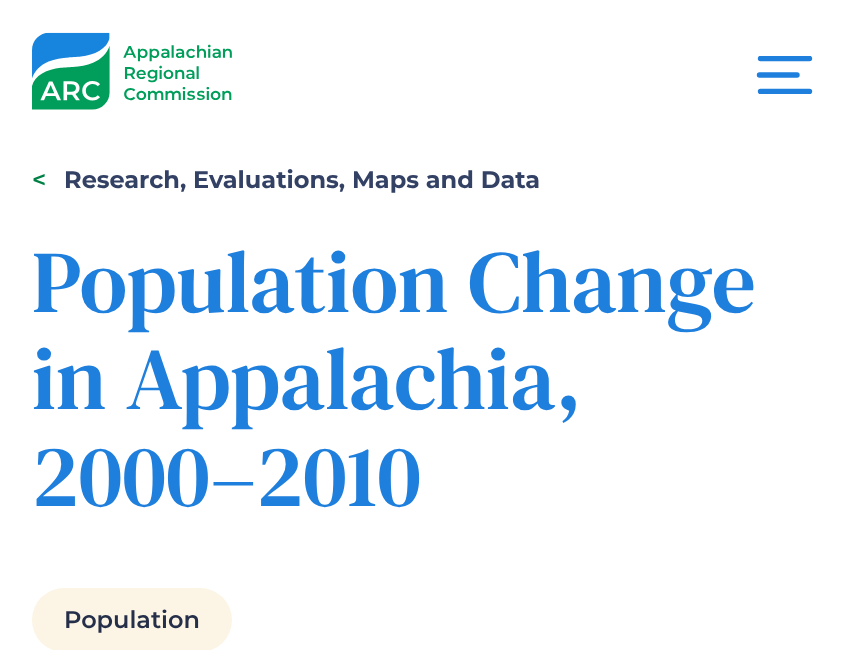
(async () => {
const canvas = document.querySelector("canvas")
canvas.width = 845
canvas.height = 650
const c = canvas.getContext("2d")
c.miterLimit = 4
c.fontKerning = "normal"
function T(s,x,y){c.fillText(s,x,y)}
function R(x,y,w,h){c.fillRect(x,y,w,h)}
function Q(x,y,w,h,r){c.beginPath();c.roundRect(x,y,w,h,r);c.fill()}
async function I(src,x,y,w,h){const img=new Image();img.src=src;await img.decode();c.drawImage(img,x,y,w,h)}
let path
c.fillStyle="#fff"
R(0,0,845,650)
await I("1.png",32,32,200,78)
c.save()
c.beginPath()
c.rect(756,56,58,38)
c.clip()
path = new Path2D("M759.5 75h37.5m-36.5-16.5h49m-49 33h49")
c.strokeStyle="#1f7fdd"
c.lineWidth=5.4
c.lineCap="round"
c.lineJoin="round"
c.stroke(path)
c.restore()
c.font="600 24px Montserrat"
c.fillStyle="#008045"
T("<",32,188)
c.font="bold 24px Montserrat"
c.fillStyle="#334165"
T("Research, Evaluations, Maps and Data",64,188)
c.font="88px DM Serif Text"
c.fillStyle="#1f7fdd"
T("Population Change",32,312)
T("in Appalachia,",32,409)
T("2000–2010",32,506)
c.fillStyle="#fcf5e5"
Q(32,588,200,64,32)
c.font="600 24px Montserrat"
c.fillStyle="#252f49"
T("Population",64,628)
})()
